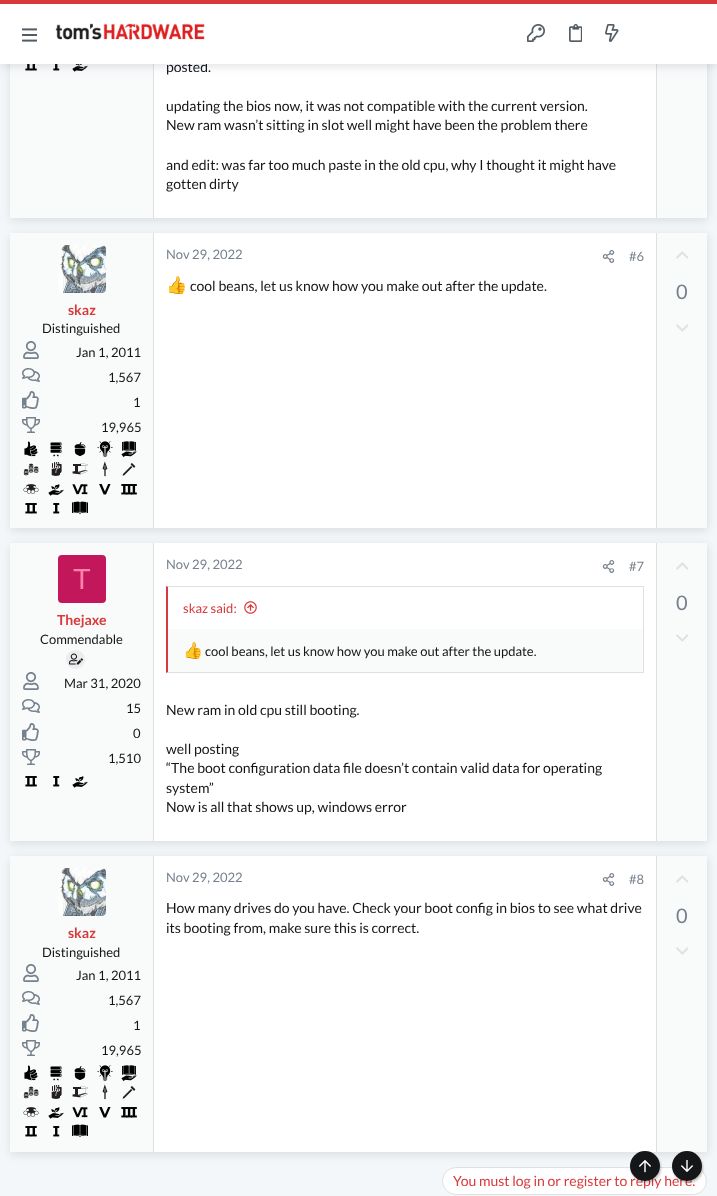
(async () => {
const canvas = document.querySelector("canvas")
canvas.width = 717
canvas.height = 1196
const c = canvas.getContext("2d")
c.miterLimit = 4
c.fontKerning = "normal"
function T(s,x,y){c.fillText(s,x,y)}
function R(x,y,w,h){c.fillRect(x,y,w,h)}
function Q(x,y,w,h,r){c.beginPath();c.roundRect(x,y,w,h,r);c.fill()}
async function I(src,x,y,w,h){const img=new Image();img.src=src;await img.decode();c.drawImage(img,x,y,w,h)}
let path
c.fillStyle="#f4f7f9"
R(0,0,717,1196)
c.fillStyle="#6b778014"
c.filter="blur(4px)"
c.beginPath()
c.rect(12,-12,697,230)
c.fill()
c.filter="none"
c.fillStyle="#6b77801f"
c.filter="blur(4px)"
c.beginPath()
c.rect(10,-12,697,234)
c.fill()
c.filter="none"
c.fillStyle="#fff"
R(154,64,502,154)
c.fillStyle="#f9fafa"
R(10,64,143,154)
c.fillStyle="#e0e0e0"
R(153,64,1,154)
await I("6.png",25,64,12,7)
await I("7.png",53,64,7,7)
await I("8.png",72,64,16,8)
c.fillStyle="#f9fafa"
R(657,64,50,154)
c.fillStyle="#e0e0e0"
R(656,64,1,154)
c.fillStyle="#6b778014"
c.filter="blur(4px)"
c.beginPath()
c.rect(2,0,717,64)
c.fill()
c.filter="none"
c.fillStyle="#6b77801f"
c.filter="blur(4px)"
c.beginPath()
c.rect(0,4,717,64)
c.fill()
c.filter="none"
c.font="14px Lato"
c.fillStyle="#141618"
T("posted.",166,72)
c.fillStyle="#fff"
R(0,4,717,60)
c.fillStyle="#d8393b"
R(0,0,717,4)
await I("1.png",22,28,15,14)
await I("2.png",55,23,150,17)
await I("3.png",527,24,18,18)
await I("4.png",569,24,13,18)
await I("5.png",605,24,14,18)
c.fillStyle="#141618"
T("updating the bios now, it was not compatible with the current version.",166,111)
T("New ram wasn’t sitting in slot well might have been the problem there",166,130)
T("and edit: was far too much paste in the old cpu, why I thought it might have",166,170)
T("gotten dirty",166,189)
c.fillStyle="#6b778014"
c.filter="blur(4px)"
c.beginPath()
c.rect(12,233,697,295)
c.fill()
c.filter="none"
c.fillStyle="#6b77801f"
c.filter="blur(4px)"
c.beginPath()
c.rect(10,237,697,295)
c.fill()
c.filter="none"
c.fillStyle="#fff"
R(154,233,502,295)
c.font="13px Lato"
c.fillStyle="#76818d"
T("Nov 29, 2022",166,259)
await I("9.png",602,250,13,13)
T("#6",629,261)
c.font="17px Noto Color Emoji"
c.fillStyle="#141618"
T("👍",166,291)
c.font="14px Lato"
T("cool beans, let us know how you make out after the update.",190,291)
c.fillStyle="#f9fafa"
R(657,233,50,295)
c.fillStyle="#e0e0e0"
R(656,233,1,295)
await I("10.png",676,251,12,8)
c.font="20px Lato"
c.fillStyle="#76818d"
T("0",676,299)
await I("11.png",676,324,12,8)
c.fillStyle="#f9fafa"
R(10,233,143,295)
c.fillStyle="#e0e0e0"
R(153,233,1,295)
await I("12.png",58,245,48,48)
c.font="bold 14px Lato"
c.fillStyle="#d8393b"
T("skaz",68,315)
c.font="13px Lato"
c.fillStyle="#141618"
T("Distinguished",42,333)
await I("13.png",23,341,16,18)
T("Jan 1, 2011",76,357)
await I("14.png",22,368,18,14)
T("1,567",108,382)
await I("15.png",22,391,17,18)
T("1",133,407)
await I("16.png",22,417,18,16)
T("19,965",101,432)
await I("17.png",24,441,14,16)
await I("18.png",50,442,12,15)
await I("19.png",74,442,12,14)
await I("20.png",97,441,16,16)
await I("21.png",121,441,16,16)
await I("22.png",23,463,16,13)
await I("23.png",51,462,11,14)
await I("24.png",72,463,16,12)
await I("25.png",102,461,6,16)
await I("26.png",122,463,14,13)
await I("27.png",23,484,16,10)
await I("28.png",48,484,16,12)
await I("29.png",72,484,16,11)
await I("30.png",99,484,12,11)
await I("31.png",121,484,16,11)
await I("32.png",25,503,12,11)
await I("33.png",53,503,7,11)
await I("34.png",72,501,16,13)
c.fillStyle="#6b778014"
c.filter="blur(4px)"
c.beginPath()
c.rect(12,543,697,298)
c.fill()
c.filter="none"
c.fillStyle="#6b77801f"
c.filter="blur(4px)"
c.beginPath()
c.rect(10,547,697,298)
c.fill()
c.filter="none"
c.fillStyle="#fff"
R(154,543,502,298)
c.fillStyle="#f9fafa"
R(10,543,143,298)
c.fillStyle="#e0e0e0"
R(153,543,1,298)
c.fillStyle="#c2185b"
Q(58,555,48,48,4)
c.font="29px Liberation Sans"
c.fillStyle="#ff80ab"
T("T",73,589)
c.font="bold 14px Lato"
c.fillStyle="#d8393b"
T("Thejaxe",57,625)
c.font="13px Lato"
c.fillStyle="#141618"
T("Commendable",40,644)
c.fillStyle="#ebecee"
c.beginPath()
c.arc(75.5,659.5,9.5,0,7)
c.fill()
await I("35.png",69,653,14,12)
await I("13.png",23,672,16,18)
c.fillStyle="#141618"
T("Mar 31, 2020",64,688)
await I("14.png",22,699,18,14)
T("15",126,713)
await I("36.png",22,723,17,18)
T("0",133,738)
await I("16.png",22,749,18,16)
T("1,510",108,763)
await I("32.png",25,776,12,11)
await I("33.png",53,776,7,11)
await I("28.png",72,776,16,12)
c.fillStyle="#76818d"
T("Nov 29, 2022",166,569)
await I("9.png",602,560,13,13)
T("#7",629,571)
c.fillStyle="#f9fafa"
R(168,629,475,43)
c.fillStyle="#e0e0e0"
path = new Path2D("M166 586h478l-1 1h-475z")
c.fill(path)
R(643,586,1,87)
path = new Path2D("M644 673h-478l2-1h475z")
c.fill(path)
c.fillStyle="#d8393b"
path = new Path2D("M166 673v-87l2 1v85z")
c.fill(path)
T("skaz said:",183,613)
await I("37.png",244,601,13,13)
c.font="16px Noto Color Emoji"
c.fillStyle="#141618"
T("👍",183,656)
c.font="13px Lato"
T("cool beans, let us know how you make out after the update.",205,656)
c.font="14px Lato"
T("New ram in old cpu still booting.",166,715)
T("well posting",166,754)
T("“The boot configuration data file doesn’t contain valid data for operating",166,773)
T("system”",166,793)
T("Now is all that shows up, windows error",166,812)
c.fillStyle="#f9fafa"
R(657,543,50,298)
c.fillStyle="#e0e0e0"
R(656,543,1,298)
await I("10.png",676,562,12,8)
c.font="20px Lato"
c.fillStyle="#76818d"
T("0",676,610)
await I("11.png",676,634,12,8)
c.fillStyle="#6b778014"
c.filter="blur(4px)"
c.beginPath()
c.rect(12,856,697,296)
c.fill()
c.filter="none"
c.fillStyle="#6b77801f"
c.filter="blur(4px)"
c.beginPath()
c.rect(10,860,697,296)
c.fill()
c.filter="none"
c.fillStyle="#fff"
R(154,856,502,296)
c.font="13px Lato"
c.fillStyle="#76818d"
T("Nov 29, 2022",166,882)
await I("9.png",602,873,13,13)
T("#8",629,884)
c.font="14px Lato"
c.fillStyle="#141618"
T("How many drives do you have. Check your boot config in bios to see what drive",166,913)
T("its booting from, make sure this is correct.",166,933)
c.fillStyle="#f9fafa"
R(657,856,50,296)
c.fillStyle="#e0e0e0"
R(656,856,1,296)
await I("10.png",676,875,12,8)
c.font="20px Lato"
c.fillStyle="#76818d"
T("0",676,923)
await I("11.png",676,947,12,8)
c.fillStyle="#f9fafa"
R(10,856,143,296)
c.fillStyle="#e0e0e0"
R(153,856,1,296)
await I("12.png",58,868,48,48)
c.font="bold 14px Lato"
c.fillStyle="#d8393b"
T("skaz",68,938)
c.font="13px Lato"
c.fillStyle="#141618"
T("Distinguished",42,957)
await I("13.png",23,964,16,18)
T("Jan 1, 2011",76,980)
await I("14.png",22,991,18,14)
T("1,567",108,1005)
await I("36.png",22,1014,17,18)
T("1",133,1030)
await I("16.png",22,1040,18,16)
T("19,965",101,1055)
await I("17.png",24,1065,14,16)
await I("18.png",50,1066,12,15)
await I("19.png",74,1066,12,14)
await I("20.png",97,1065,16,16)
await I("21.png",121,1065,16,16)
await I("22.png",23,1086,16,13)
await I("23.png",51,1085,11,14)
await I("24.png",72,1086,16,12)
await I("25.png",102,1084,6,16)
await I("26.png",122,1086,14,13)
await I("27.png",23,1107,16,10)
await I("28.png",48,1107,16,12)
await I("29.png",72,1107,16,11)
await I("30.png",99,1107,12,11)
await I("31.png",121,1107,16,11)
await I("32.png",25,1126,12,11)
await I("33.png",53,1126,7,11)
await I("34.png",72,1124,16,13)
c.fillStyle="#fff"
c.beginPath()
c.roundRect(442.5,1167.5,264,27,13.5)
c.fill()
c.strokeStyle="#e0e0e0"
c.stroke()
c.font="14px Lato"
c.fillStyle="#d8393b"
T("You must log in or register to reply here.",453,1186)
c.fillStyle="#00000040"
c.filter="blur(1px)"
c.beginPath()
c.roundRect(631,1153,30,30,15)
c.fill()
c.filter="none"
c.fillStyle="#141618"
c.beginPath()
c.arc(645,1166,15,0,7)
c.fill()
await I("38.png",639,1160,12,13)
c.fillStyle="#00000040"
c.filter="blur(1px)"
c.beginPath()
c.roundRect(673,1153,30,30,15)
c.fill()
c.filter="none"
c.fillStyle="#141618"
c.beginPath()
c.arc(687,1166,15,0,7)
c.fill()
await I("39.png",681,1160,12,12)
})()
